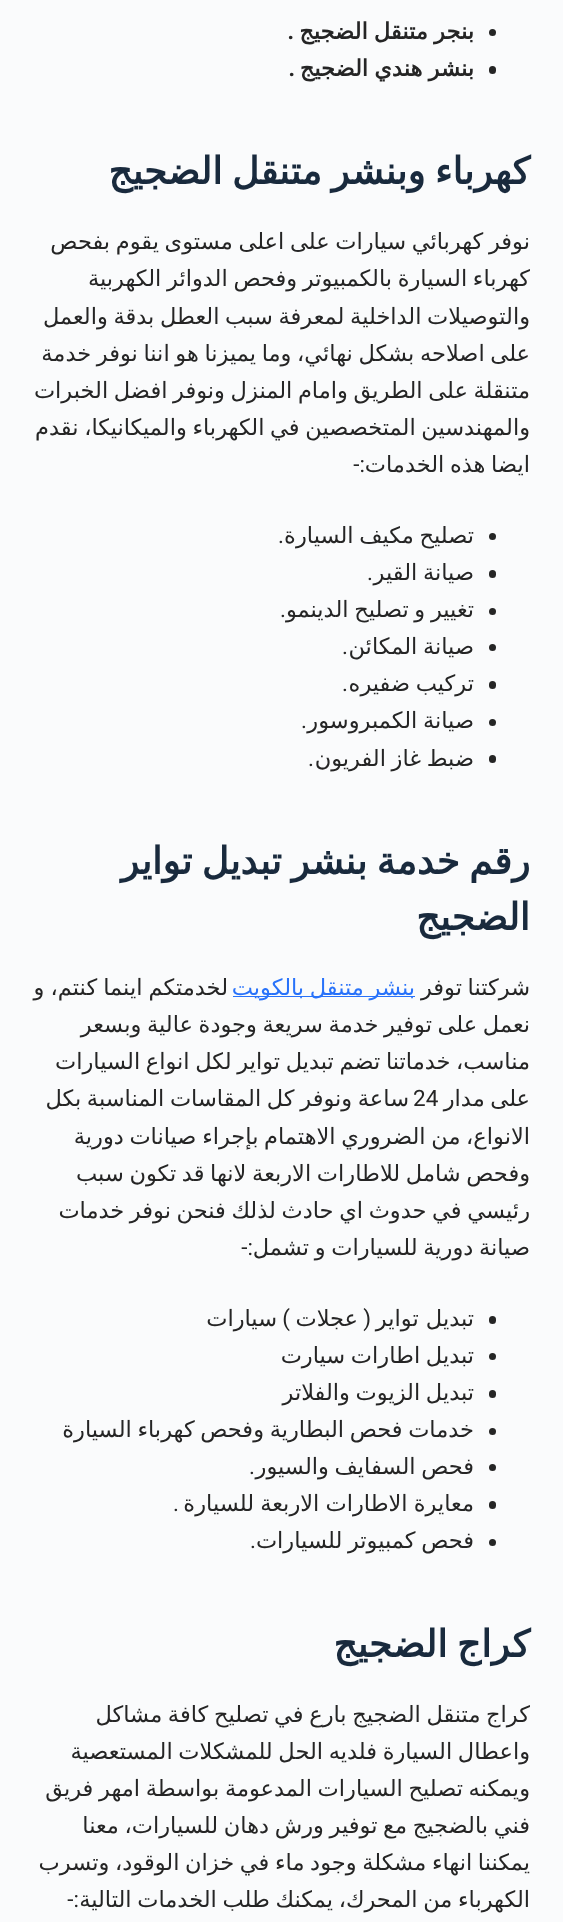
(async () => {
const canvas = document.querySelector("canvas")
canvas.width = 563
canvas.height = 1922
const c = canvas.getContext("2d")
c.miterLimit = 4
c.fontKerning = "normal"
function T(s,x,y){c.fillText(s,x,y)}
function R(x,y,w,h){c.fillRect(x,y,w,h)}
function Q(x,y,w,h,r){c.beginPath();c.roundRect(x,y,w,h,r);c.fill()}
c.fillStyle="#fafbfc"
R(0,0,563,1922)
c.fillStyle="#252525"
c.beginPath()
c.arc(492.5,32.5,3.5,0,7)
c.fill()
c.wordSpacing="-1px"
c.direction="rtl"
c.font="bold 22.5px DejaVu Sans"
T("بنجر متنقل الضجيج",474,39)
c.wordSpacing="0px"
c.font="bold 22.5px Roboto"
T(".",294,39)
Q(489,66,7,8,3.5)
c.wordSpacing="-1px"
c.font="bold 22.5px DejaVu Sans"
T("بنشر هندي الضجيج",474,76)
c.wordSpacing="0px"
c.font="bold 22.5px Roboto"
T(".",295,76)
c.wordSpacing="-2.5px"
c.font="bold 37.5px DejaVu Sans"
c.fillStyle="#192a3d"
T("كهرباء وبنشر متنقل الضجيج",530,184)
c.wordSpacing="-1.5px"
c.font="22.5px DejaVu Sans"
c.fillStyle="#252525"
T("نوفر كهربائي سيارات على اعلى مستوى يقوم بفحص",530,249)
T("كهرباء السيارة بالكمبيوتر وفحص الدوائر الكهربية",530,286)
T("والتوصيلات الداخلية لمعرفة سبب العطل بدقة والعمل",530,324)
T("على اصلاحه بشكل نهائي، وما يميزنا هو اننا نوفر خدمة",530,361)
T("متنقلة على الطريق وامام المنزل ونوفر افضل الخبرات",530,398)
T("والمهندسين المتخصصين في الكهرباء والميكانيكا، نقدم",530,435)
T("ايضا هذه الخدمات",530,472)
c.wordSpacing="0px"
c.font="22.5px Roboto"
T(":-",365,472)
c.beginPath()
c.arc(492.5,536.5,3.5,0,7)
c.fill()
c.wordSpacing="-1.5px"
c.font="22.5px DejaVu Sans"
T("تصليح مكيف السيارة",474,543)
c.wordSpacing="0px"
c.font="22.5px Roboto"
T(".",284,543)
Q(489,570,7,8,3.5)
c.wordSpacing="-1.5px"
c.font="22.5px DejaVu Sans"
T("صيانة القير",474,580)
c.wordSpacing="0px"
c.font="22.5px Roboto"
T(".",373,580)
c.beginPath()
c.arc(492.5,611.5,3.5,0,7)
c.fill()
c.wordSpacing="-1.5px"
c.font="22.5px DejaVu Sans"
T("تغيير و تصليح الدينمو",474,617)
c.wordSpacing="0px"
c.font="22.5px Roboto"
T(".",286,617)
c.beginPath()
c.arc(492.5,647.5,3.5,0,7)
c.fill()
c.wordSpacing="-1.5px"
c.font="22.5px DejaVu Sans"
T("صيانة المكائن",474,654)
c.wordSpacing="0px"
c.font="22.5px Roboto"
T(".",348,654)
Q(489,681,7,8,3.5)
c.wordSpacing="-1.5px"
c.font="22.5px DejaVu Sans"
T("تركيب ضفيره",474,691)
c.wordSpacing="0px"
c.font="22.5px Roboto"
T(".",348,691)
c.beginPath()
c.arc(492.5,722.5,3.5,0,7)
c.fill()
c.wordSpacing="-1.5px"
c.font="22.5px DejaVu Sans"
T("صيانة الكمبروسور",474,728)
c.wordSpacing="0px"
c.font="22.5px Roboto"
T(".",307,728)
Q(489,755,7,8,3.5)
c.wordSpacing="-1.5px"
c.font="22.5px DejaVu Sans"
T("ضبط غاز الفريون",474,766)
c.wordSpacing="0px"
c.font="22.5px Roboto"
T(".",314,766)
c.wordSpacing="-2.5px"
c.font="bold 37.5px DejaVu Sans"
c.fillStyle="#192a3d"
T("رقم خدمة بنشر تبديل تواير",530,874)
c.wordSpacing="0px"
T("الضجيج",530,930)
c.wordSpacing="-1.5px"
c.font="22.5px DejaVu Sans"
c.fillStyle="#252525"
T("شركتنا توفر",530,995)
c.fillStyle="#2872fa"
R(233,996,182,1)
T("بنشر متنقل بالكويت",415,995)
c.wordSpacing="-1px"
c.fillStyle="#252525"
T("لخدمتكم اينما كنتم، و",228,995)
c.wordSpacing="-1.5px"
T("نعمل على توفير خدمة سريعة وجودة عالية وبسعر",530,1032)
T("مناسب، خدماتنا تضم تبديل تواير لكل انواع السيارات",530,1069)
T("على مدار",530,1106)
T("ساعة ونوفر كل المقاسات المناسبة بكل",409,1106)
c.wordSpacing="0px"
c.direction="ltr"
c.font="22.5px Roboto"
T("24",413,1106)
c.wordSpacing="-1.5px"
c.direction="rtl"
c.font="22.5px DejaVu Sans"
T("الانواع، من الضروري الاهتمام بإجراء صيانات دورية",530,1144)
T("وفحص شامل للاطارات الاربعة لانها قد تكون سبب",530,1181)
T("رئيسي في حدوث اي حادث لذلك فنحن نوفر خدمات",530,1218)
T("صيانة دورية للسيارات و تشمل",530,1255)
c.wordSpacing="0px"
c.font="22.5px Roboto"
T(":-",253,1255)
Q(489,1316,7,8,3.5)
c.font="22.5px DejaVu Sans"
T("تبديل تواير",474,1326)
c.font="22.5px Roboto"
T("(",371,1326)
c.font="22.5px DejaVu Sans"
T("عجلات",358,1326)
c.font="22.5px Roboto"
T(")",290,1326)
c.font="22.5px DejaVu Sans"
T("سيارات",277,1326)
c.beginPath()
c.arc(492.5,1356.5,3.5,0,7)
c.fill()
c.wordSpacing="-1.5px"
T("تبديل اطارات سيارت",474,1363)
Q(489,1390,7,8,3.5)
T("تبديل الزيوت والفلاتر",474,1400)
c.beginPath()
c.arc(492.5,1431.5,3.5,0,7)
c.fill()
T("خدمات فحص البطارية وفحص كهرباء السيارة",474,1437)
c.beginPath()
c.arc(492.5,1467.5,3.5,0,7)
c.fill()
T("فحص السفايف والسيور",474,1474)
c.wordSpacing="0px"
c.font="22.5px Roboto"
T(".",255,1474)
Q(489,1501,7,8,3.5)
c.wordSpacing="-1px"
c.font="22.5px DejaVu Sans"
T("معايرة الاطارات الاربعة للسيارة",474,1511)
c.wordSpacing="0px"
c.font="22.5px Roboto"
T(".",179,1511)
c.beginPath()
c.arc(492.5,1542.5,3.5,0,7)
c.fill()
c.wordSpacing="-1.5px"
c.font="22.5px DejaVu Sans"
T("فحص كمبيوتر للسيارات",474,1548)
c.wordSpacing="0px"
c.font="22.5px Roboto"
T(".",256,1548)
c.wordSpacing="-2.5px"
c.font="bold 37.5px DejaVu Sans"
c.fillStyle="#192a3d"
T("كراج الضجيج",530,1657)
c.wordSpacing="-1.5px"
c.font="22.5px DejaVu Sans"
c.fillStyle="#252525"
T("كراج متنقل الضجيج بارع في تصليح كافة مشاكل",530,1722)
T("واعطال السيارة فلديه الحل للمشكلات المستعصية",530,1759)
T("ويمكنه تصليح السيارات المدعومة بواسطة امهر فريق",530,1796)
T("فني بالضجيج مع توفير ورش دهان للسيارات، معنا",530,1833)
T("يمكننا انهاء مشكلة وجود ماء في خزان الوقود، وتسرب",530,1870)
T("الكهرباء من المحرك، يمكنك طلب الخدمات التالية",530,1907)
c.wordSpacing="0px"
c.font="22.5px Roboto"
T(":-",79,1907)
})()
